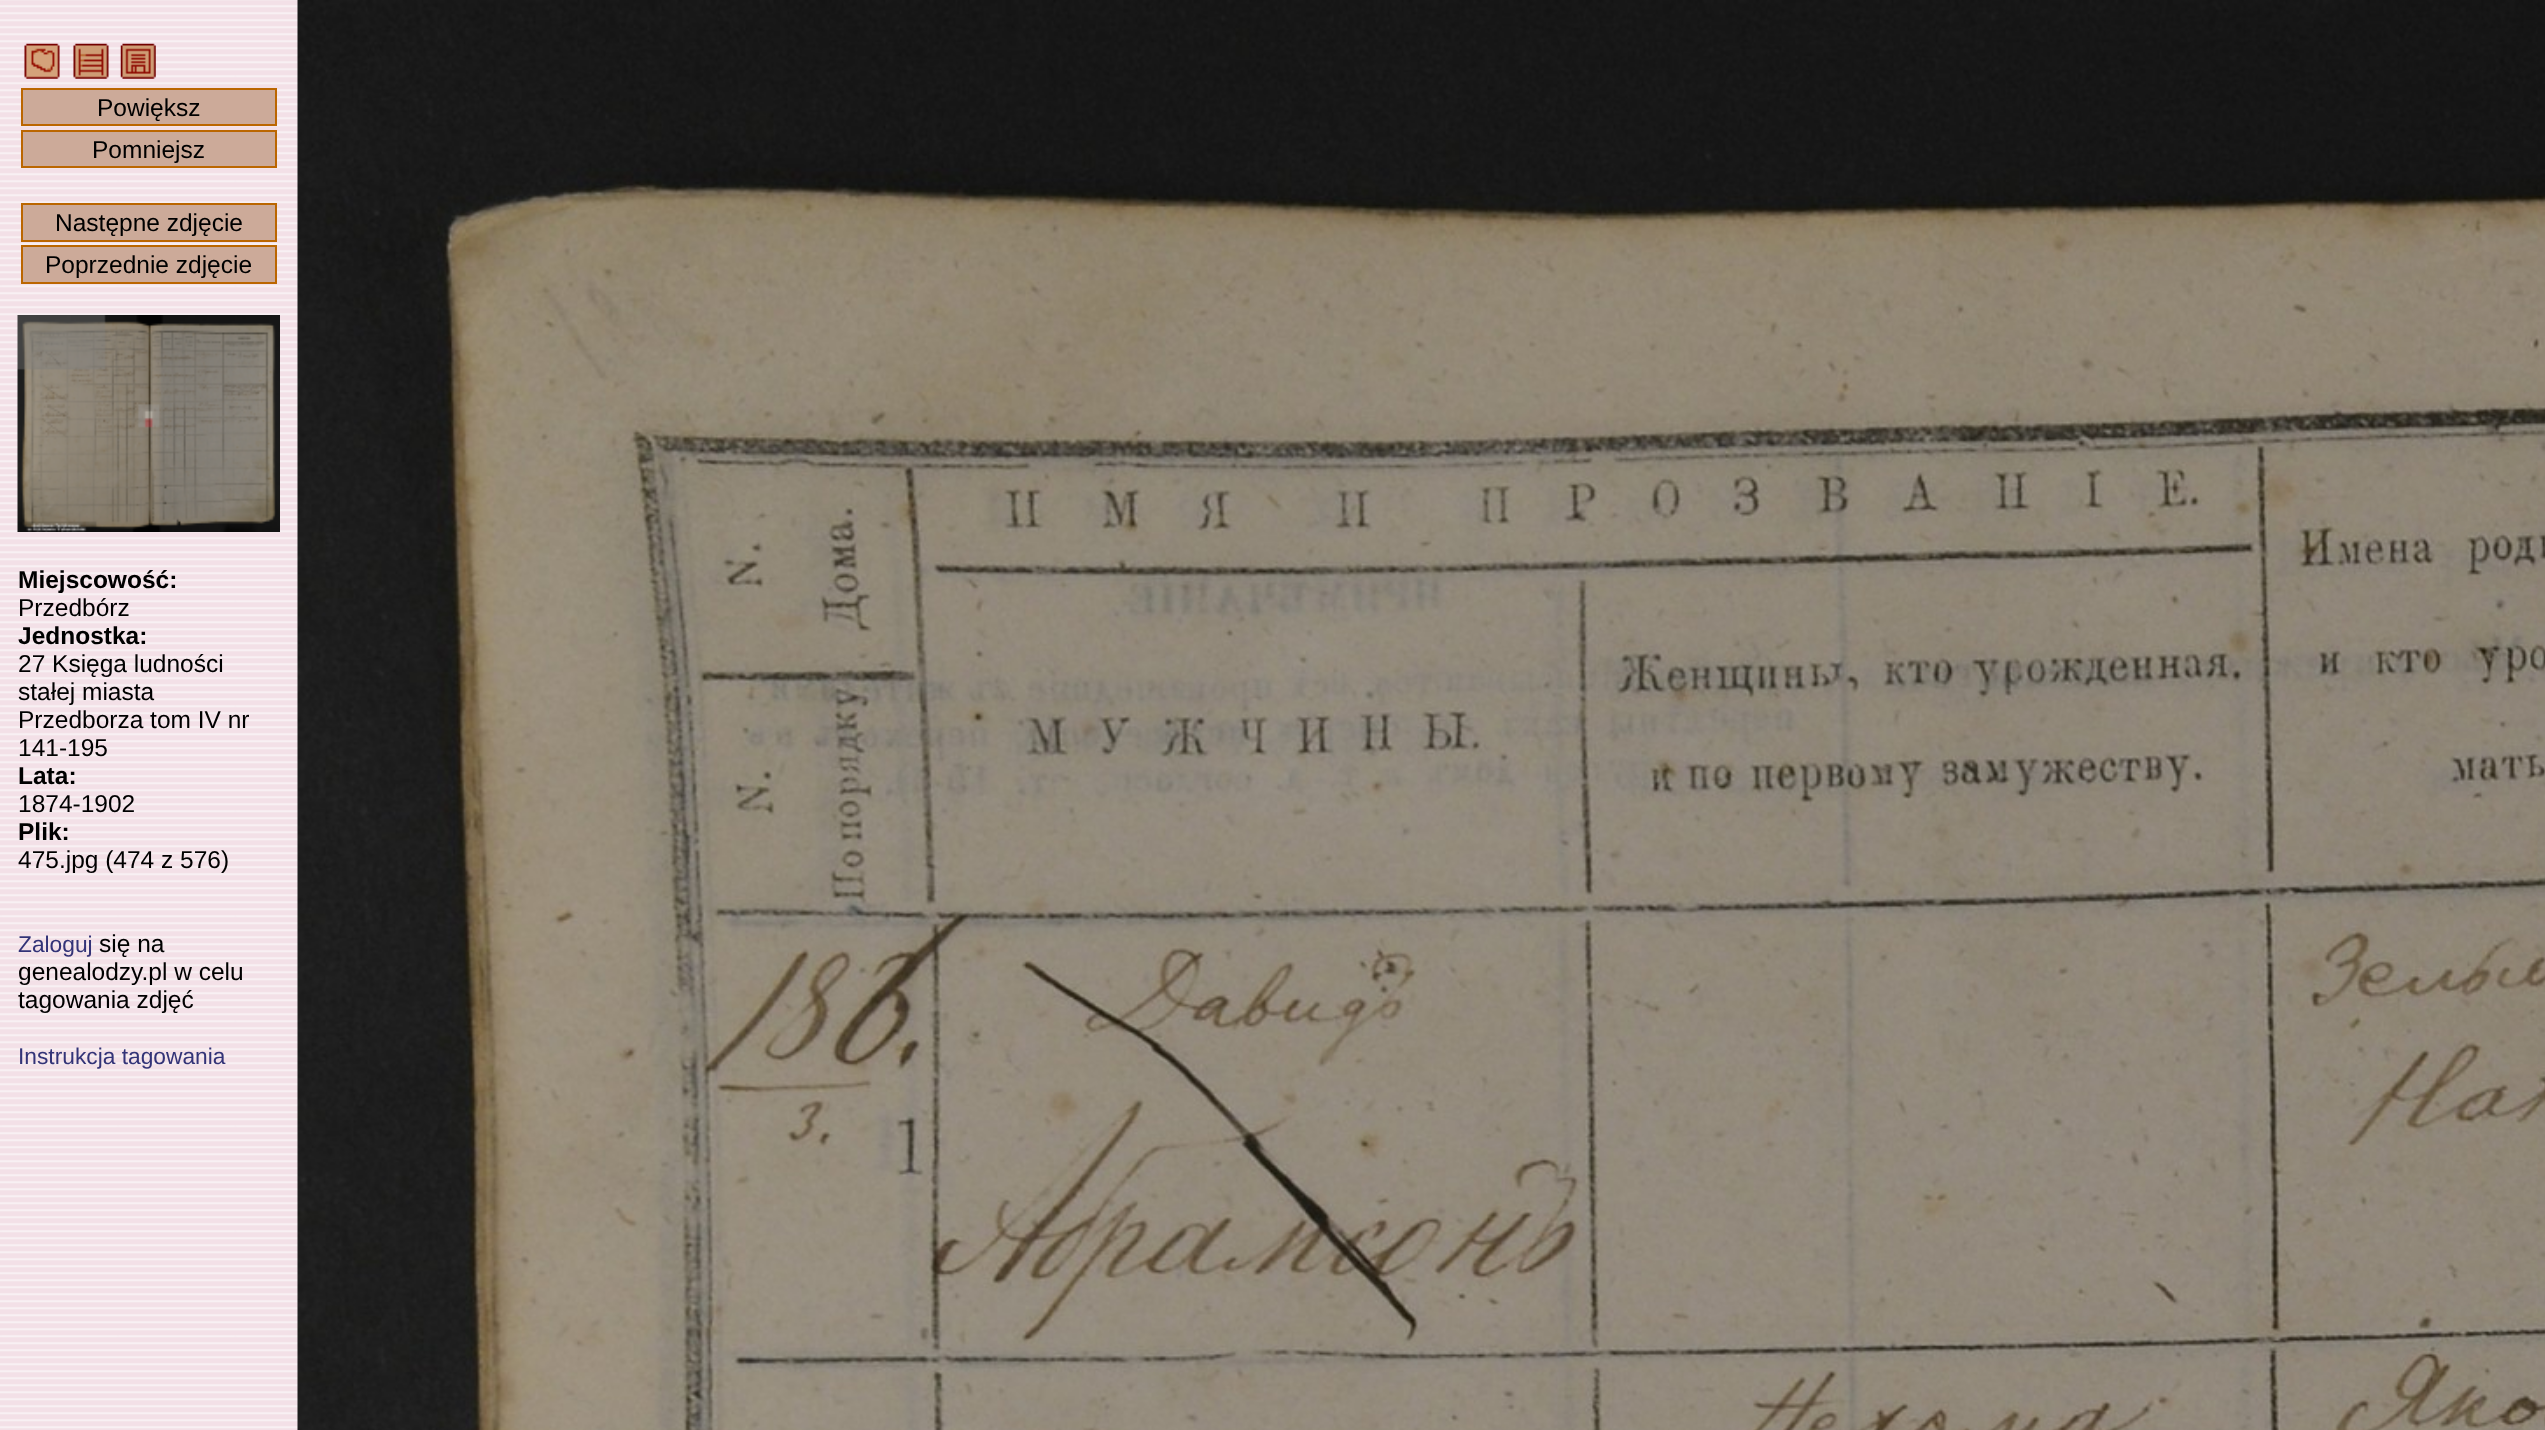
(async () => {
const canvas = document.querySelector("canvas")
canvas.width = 2545
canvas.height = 1430
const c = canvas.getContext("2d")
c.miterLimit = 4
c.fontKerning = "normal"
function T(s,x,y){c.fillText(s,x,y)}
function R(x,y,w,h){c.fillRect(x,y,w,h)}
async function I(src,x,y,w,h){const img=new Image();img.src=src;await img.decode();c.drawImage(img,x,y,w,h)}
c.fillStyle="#fff"
R(0,0,2545,1430)
await I("1.png",0,0,298,1430)
await I("2.png",24,43,36,36)
await I("3.png",73,43,36,36)
await I("4.png",120,43,36,36)
c.fillStyle="#ca9"
c.beginPath()
c.rect(22,89,254,36)
c.fill()
c.strokeStyle="#b60"
c.lineWidth=2
c.stroke()
c.font="24.5px Liberation Sans"
c.fillStyle="#000"
T("Powiększ",97,116)
c.fillStyle="#ca9"
c.beginPath()
c.rect(22,131,254,36)
c.fill()
c.stroke()
c.fillStyle="#000"
T("Pomniejsz",92,158)
c.fillStyle="#ca9"
c.beginPath()
c.rect(22,204,254,37)
c.fill()
c.stroke()
c.fillStyle="#000"
T("Następne zdjęcie",55,231)
c.fillStyle="#ca9"
c.beginPath()
c.rect(22,246,254,37)
c.fill()
c.stroke()
c.fillStyle="#000"
T("Poprzednie zdjęcie",45,273)
await I("5.png",17,315,263,217)
c.font="bold 24.5px Liberation Sans"
T("Miejscowość:",18,588)
c.font="24.5px Liberation Sans"
T("Przedbórz",18,616)
c.font="bold 24.5px Liberation Sans"
T("Jednostka:",18,644)
c.font="24.5px Liberation Sans"
T("27 Księga ludności",18,672)
T("stałej miasta",18,700)
T("Przedborza tom IV nr",18,728)
T("141-195",18,756)
c.font="bold 24.5px Liberation Sans"
T("Lata:",18,784)
c.font="24.5px Liberation Sans"
T("1874-1902",18,812)
c.font="bold 24.5px Liberation Sans"
T("Plik:",18,840)
c.font="24.5px Liberation Sans"
T("475.jpg (474 z 576)",18,868)
c.font="22.75px Liberation Sans"
c.fillStyle="#337"
T("Zaloguj",18,952)
c.font="24.5px Liberation Sans"
c.fillStyle="#000"
T("się na",99,952)
T("genealodzy.pl w celu",18,980)
T("tagowania zdjęć",18,1008)
c.font="22.75px Liberation Sans"
c.fillStyle="#337"
T("Instrukcja tagowania",18,1064)
await I("6.png",297,0,2248,1430)
})()
